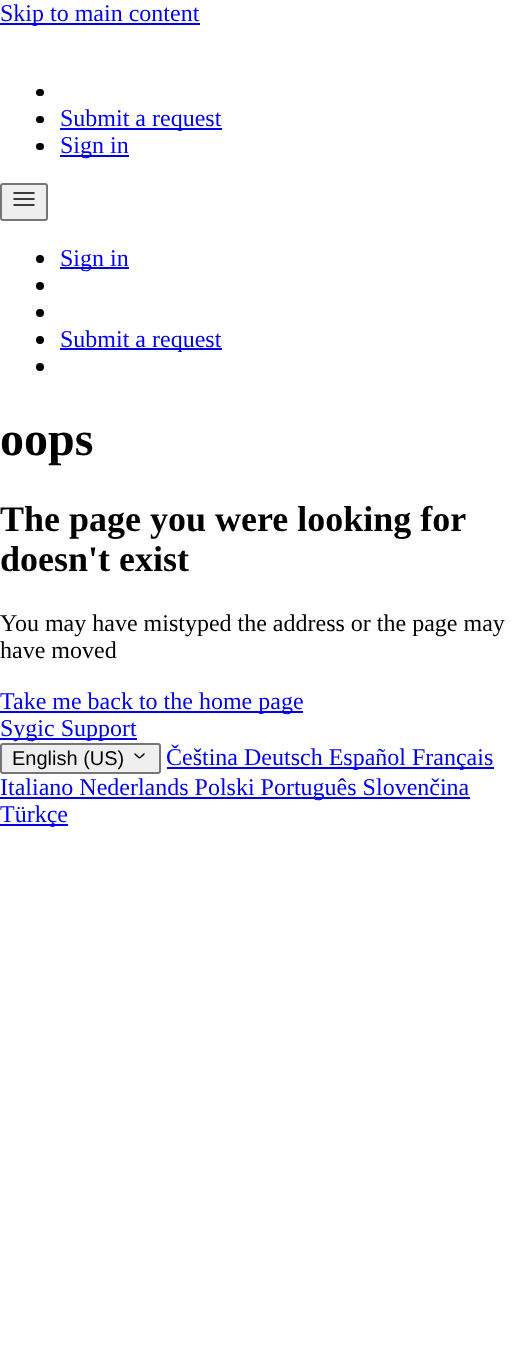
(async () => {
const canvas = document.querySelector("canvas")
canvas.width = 516
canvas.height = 1367
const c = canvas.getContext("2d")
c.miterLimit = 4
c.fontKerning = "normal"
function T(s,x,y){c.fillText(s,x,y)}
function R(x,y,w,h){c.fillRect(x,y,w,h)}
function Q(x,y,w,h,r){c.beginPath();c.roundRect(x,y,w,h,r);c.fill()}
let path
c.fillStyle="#fff"
R(0,0,516,1367)
c.fillStyle="#00e"
R(0,23,200,2)
c.font="24px Liberation Serif"
T("Skip to main content",0,21)
c.fillStyle="#000"
Q(36,89,8,7,3.5)
Q(36,116,8,7,3.5)
c.fillStyle="#00e"
R(60,128,162,2)
T("Submit a request",60,126)
c.fillStyle="#000"
Q(36,143,8,7,3.5)
c.fillStyle="#00e"
R(60,155,69,2)
T("Sign in",60,153)
c.fillStyle="#efefef"
c.beginPath()
c.roundRect(1,184,46,36,2)
c.fill()
c.strokeStyle="#767676"
c.lineWidth=2
c.stroke()
path = new Path2D("M14 193h20m-20 6h20m-20 6h20")
c.strokeStyle="#000"
c.lineWidth=1.5
c.lineCap="round"
c.stroke(path)
c.fillStyle="#000"
c.beginPath()
c.arc(40,259,4,0,7)
c.fill()
c.fillStyle="#00e"
R(60,267,69,2)
T("Sign in",60,266)
c.fillStyle="#000"
c.beginPath()
c.arc(40,286,4,0,7)
c.fill()
c.beginPath()
c.arc(40,313,4,0,7)
c.fill()
c.beginPath()
c.arc(40,340,4,0,7)
c.fill()
c.fillStyle="#00e"
R(60,348,162,2)
T("Submit a request",60,347)
c.fillStyle="#000"
c.beginPath()
c.arc(40,367,4,0,7)
c.fill()
c.font="bold 48px Liberation Serif"
T("oops",0,455)
c.font="bold 36px Liberation Serif"
T("The page you were looking for",0,531)
T("doesn't exist",0,571)
c.font="24px Liberation Serif"
T("You may have mistyped the address or the page may",0,631)
T("have moved",0,658)
c.fillStyle="#00e"
R(0,711,303,2)
T("Take me back to the home page",0,709)
R(0,738,137,2)
T("Sygic Support",0,736)
c.fillStyle="#efefef"
c.beginPath()
c.roundRect(1,744,159,29,2)
c.fill()
c.strokeStyle="#767676"
c.lineWidth=2
c.stroke()
c.font="20px Liberation Sans"
c.fillStyle="#000"
T("English (US)",12,765)
path = new Path2D("M135 754c5.5 5 3.5 5 9 0")
c.strokeStyle="#000"
c.lineWidth=1.5
c.stroke(path)
c.fillStyle="#00e"
R(167,767,327,2)
c.font="24px Liberation Serif"
T("Čeština Deutsch Español Français",166,765)
R(0,797,470,2)
T("Italiano Nederlands Polski Português Slovenčina",0,795)
R(0,824,68,2)
T("Türkçe",0,822)
})()
